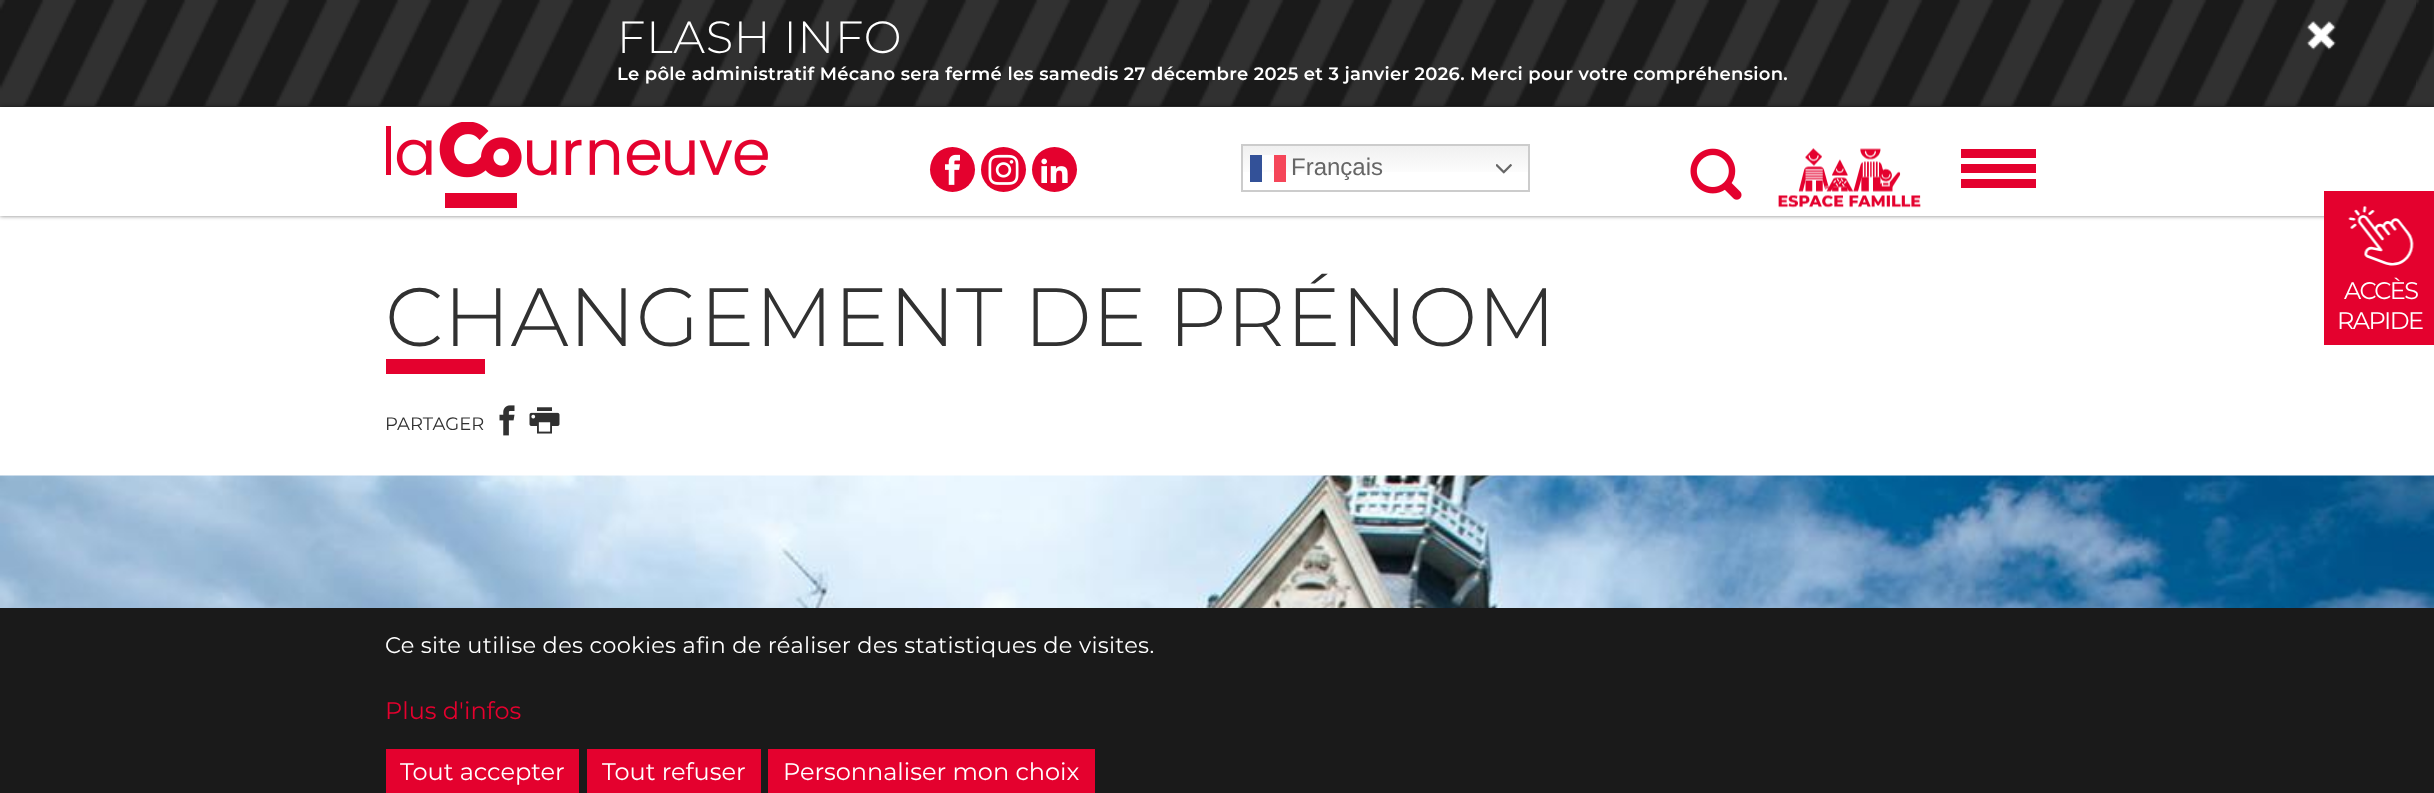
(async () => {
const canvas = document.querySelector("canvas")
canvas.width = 2434
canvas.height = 793
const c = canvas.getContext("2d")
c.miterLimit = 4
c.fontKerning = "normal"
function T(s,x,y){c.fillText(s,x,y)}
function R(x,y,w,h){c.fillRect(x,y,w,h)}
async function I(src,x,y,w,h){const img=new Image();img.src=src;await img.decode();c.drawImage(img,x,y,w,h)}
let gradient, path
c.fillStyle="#fff"
R(0,0,2434,793)
c.fillStyle="#313131"
R(0,0,2434,107)
await I("1.png",0,0,2434,106)
c.letterSpacing="0.75px"
c.font="300 45px Montserrat"
c.fillStyle="#fff"
T("FLASH INFO",617,53)
c.letterSpacing="0.3px"
c.font="600 18px Montserrat"
T("Le pôle administratif Mécano sera fermé les samedis 27 décembre 2025 et 3 janvier 2026. Merci pour votre compréhension.",617,80)
await I("2.png",2306,21,30,29)
c.save()
path = new Path2D("M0 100h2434v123h-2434zm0 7h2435v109h-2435z")
c.clip(path,"evenodd")
c.fillStyle="#00000080"
c.filter="blur(2px)"
c.beginPath()
c.rect(0,107,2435,109)
c.fill()
c.filter="none"
c.restore()
await I("3.png",386,122,382,86)
c.fillStyle="#e4012e"
c.beginPath()
c.arc(952.5,169.5,22.5,0,7)
c.fill()
await I("4.png",945,154,15,31)
c.beginPath()
c.arc(1003.5,169.5,22.5,0,7)
c.fill()
await I("5.png",988,154,31,31)
c.beginPath()
c.arc(1054.5,169.5,22.5,0,7)
c.fill()
await I("6.png",1041,158,27,25)
gradient = c.createLinearGradient(1385,144,1385,192)
gradient.addColorStop(0,"#efefef")
gradient.addColorStop(.7,"#fff")
c.fillStyle = gradient
R(1243,146,285,26)
gradient = c.createLinearGradient(1385,144,1385,192)
gradient.addColorStop(0,"#fcfcfc")
gradient.addColorStop(.7,"#fff")
c.fillStyle = gradient
R(1262,155,12,15)
c.strokeStyle="#ccc"
c.lineWidth=2
c.strokeRect(1242,145,287,46)
c.fillStyle="#335198"
R(1250,155,12,27)
c.fillStyle="#f54659"
R(1274,155,12,27)
c.letterSpacing="0px"
c.font="24px Liberation Sans"
c.fillStyle="#666"
T("Français",1291,175)
await I("7.png",1496,164,16,10)
await I("8.png",1690,148,52,52)
await I("9.png",1778,148,143,60)
c.fillStyle="#e4012e"
R(1961,149,75,9)
R(1961,164,75,9)
R(1961,179,75,9)
c.font="300 82.5px Montserrat"
c.fillStyle="#313131"
T("CHANGEMENT DE PRÉNOM",385,346)
c.fillStyle="#e4012e"
R(386,359,99,15)
c.font="18px Montserrat"
c.fillStyle="#313131"
T("PARTAGER",385,430)
await I("10.png",499,405,16,31)
await I("11.png",529,407,31,27)
await I("12.png",0,475,2434,133)
c.fillStyle="#e4012e"
R(2324,191,110,154)
await I("13.png",2348,206,66,60)
c.letterSpacing="-1.5px"
c.font="24px Montserrat"
c.fillStyle="#fff"
T("ACCÈS",2344,299)
T("RAPIDE",2337,329)
c.fillStyle="#1a1a1a"
R(0,608,2434,185)
c.letterSpacing="0.3px"
c.font="22.5px Montserrat"
c.fillStyle="#fff"
T("Ce site utilise des cookies afin de réaliser des statistiques de visites.",385,653)
c.letterSpacing="0px"
c.font="24px Montserrat"
c.fillStyle="#e4012e"
T("Plus d'infos",385,719)
R(386,749,193,44)
c.fillStyle="#fff"
T("Tout accepter",400,780)
c.fillStyle="#e4012e"
R(587,749,174,44)
c.fillStyle="#fff"
T("Tout refuser",602,780)
c.fillStyle="#e4012e"
R(768,749,327,44)
c.fillStyle="#fff"
T("Personnaliser mon choix",783,780)
})()
